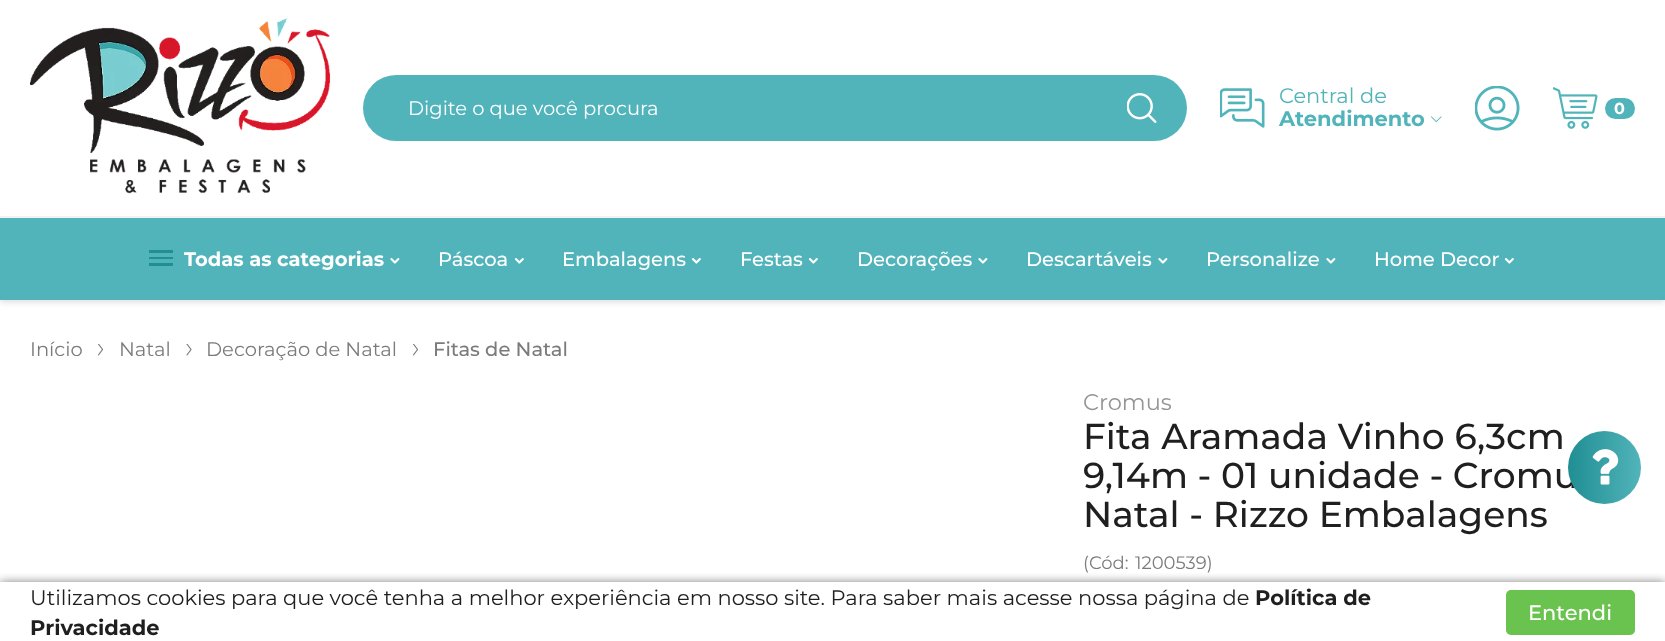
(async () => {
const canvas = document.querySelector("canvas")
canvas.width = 1665
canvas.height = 641
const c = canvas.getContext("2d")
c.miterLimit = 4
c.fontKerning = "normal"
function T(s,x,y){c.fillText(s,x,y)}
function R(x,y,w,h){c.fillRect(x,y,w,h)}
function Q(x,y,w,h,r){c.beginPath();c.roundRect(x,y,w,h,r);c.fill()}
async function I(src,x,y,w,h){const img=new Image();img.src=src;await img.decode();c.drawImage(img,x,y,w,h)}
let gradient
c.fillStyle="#fff"
R(0,0,1665,641)
c.fillStyle="#52525233"
c.filter="blur(3px)"
c.beginPath()
c.rect(0,219,1665,83)
c.fill()
c.filter="none"
c.fillStyle="#fff"
R(1,215,1663,1)
c.fillStyle="#f1f1f1"
R(0,216,1665,2)
await I("1.png",30,18,300,176)
c.fillStyle="#51b4ba"
Q(363,75,824,66,33)
c.font="19.5px Montserrat"
c.fillStyle="#fff"
T("Digite o que você procura",408,115)
await I("2.png",1127,93,30,30)
await I("3.png",1220,88,45,40)
c.font="21px Montserrat"
c.fillStyle="#51b4ba"
T("Central de",1279,103)
c.font="bold 21px Montserrat"
T("Atendimento",1279,126)
await I("4.png",1431,116,11,6)
await I("5.png",1475,86,45,45)
await I("6.png",1553,87,45,42)
Q(1605,98,30,21,10.5)
c.font="bold 16px Montserrat"
c.fillStyle="#fff"
T("0",1614,114)
c.fillStyle="#51b4ba"
R(0,218,1665,82)
c.fillStyle="#208e93"
R(149,263,24,3)
R(149,257,24,2)
R(149,250,24,3)
c.font="bold 19.5px Montserrat"
c.fillStyle="#fff"
T("Todas as categorias",184,266)
await I("7.png",390,258,10,6)
c.font="500 19.5px Montserrat"
T("Páscoa",438,266)
await I("8.png",514,258,10,6)
T("Embalagens",562,266)
await I("8.png",691,258,10,6)
T("Festas",740,266)
await I("8.png",808,258,10,6)
T("Decorações",857,266)
await I("7.png",978,258,10,6)
T("Descartáveis",1026,266)
await I("7.png",1158,258,10,6)
T("Personalize",1206,266)
await I("7.png",1326,258,10,6)
T("Home Decor",1374,266)
await I("8.png",1504,258,10,6)
c.font="19.5px Montserrat"
c.fillStyle="#7b7b7b"
T("Início",30,356)
await I("9.png",98,344,5,12)
T("Natal",119,356)
await I("10.png",186,344,6,12)
T("Decoração de Natal",206,356)
await I("9.png",413,344,5,12)
c.font="500 19.5px Montserrat"
T("Fitas de Natal",433,356)
c.font="22.5px Montserrat"
c.fillStyle="#949494"
T("Cromus",1083,410)
c.font="500 36px Montserrat"
c.fillStyle="#201f1f"
T("Fita Aramada Vinho 6,3cm",1083,449)
T("9,14m - 01 unidade - Cromu",1083,488)
T("Natal - Rizzo Embalagens",1083,527)
c.font="18px Montserrat"
c.fillStyle="#7b7b7b"
T("(Cód:",1083,569)
T("1200539)",1135,569)
gradient = c.createLinearGradient(1568,467,1641,467)
gradient.addColorStop(0,"#208e93")
gradient.addColorStop(1,"#51b4ba")
c.fillStyle = gradient
c.beginPath()
c.arc(1604.5,467.5,36.5,0,7)
c.fill()
await I("11.png",1592,449,27,36)
c.save()
c.beginPath()
c.rect(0,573,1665,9)
c.clip()
c.fillStyle="#00000080"
c.filter="blur(5px)"
c.beginPath()
c.rect(0,582,1665,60)
c.fill()
c.filter="none"
c.restore()
c.font="21px Montserrat"
c.fillStyle="#201f1f"
T("Utilizamos cookies para que você tenha a melhor experiência em nosso site. Para saber mais acesse nossa página de",30,605)
c.font="bold 21px Montserrat"
T("Política de",1255,605)
T("Privacidade",30,635)
c.fillStyle="#69c34e"
Q(1506,590,129,45,5)
c.font="500 21px Montserrat"
c.fillStyle="#fff"
T("Entendi",1528,620)
})()
